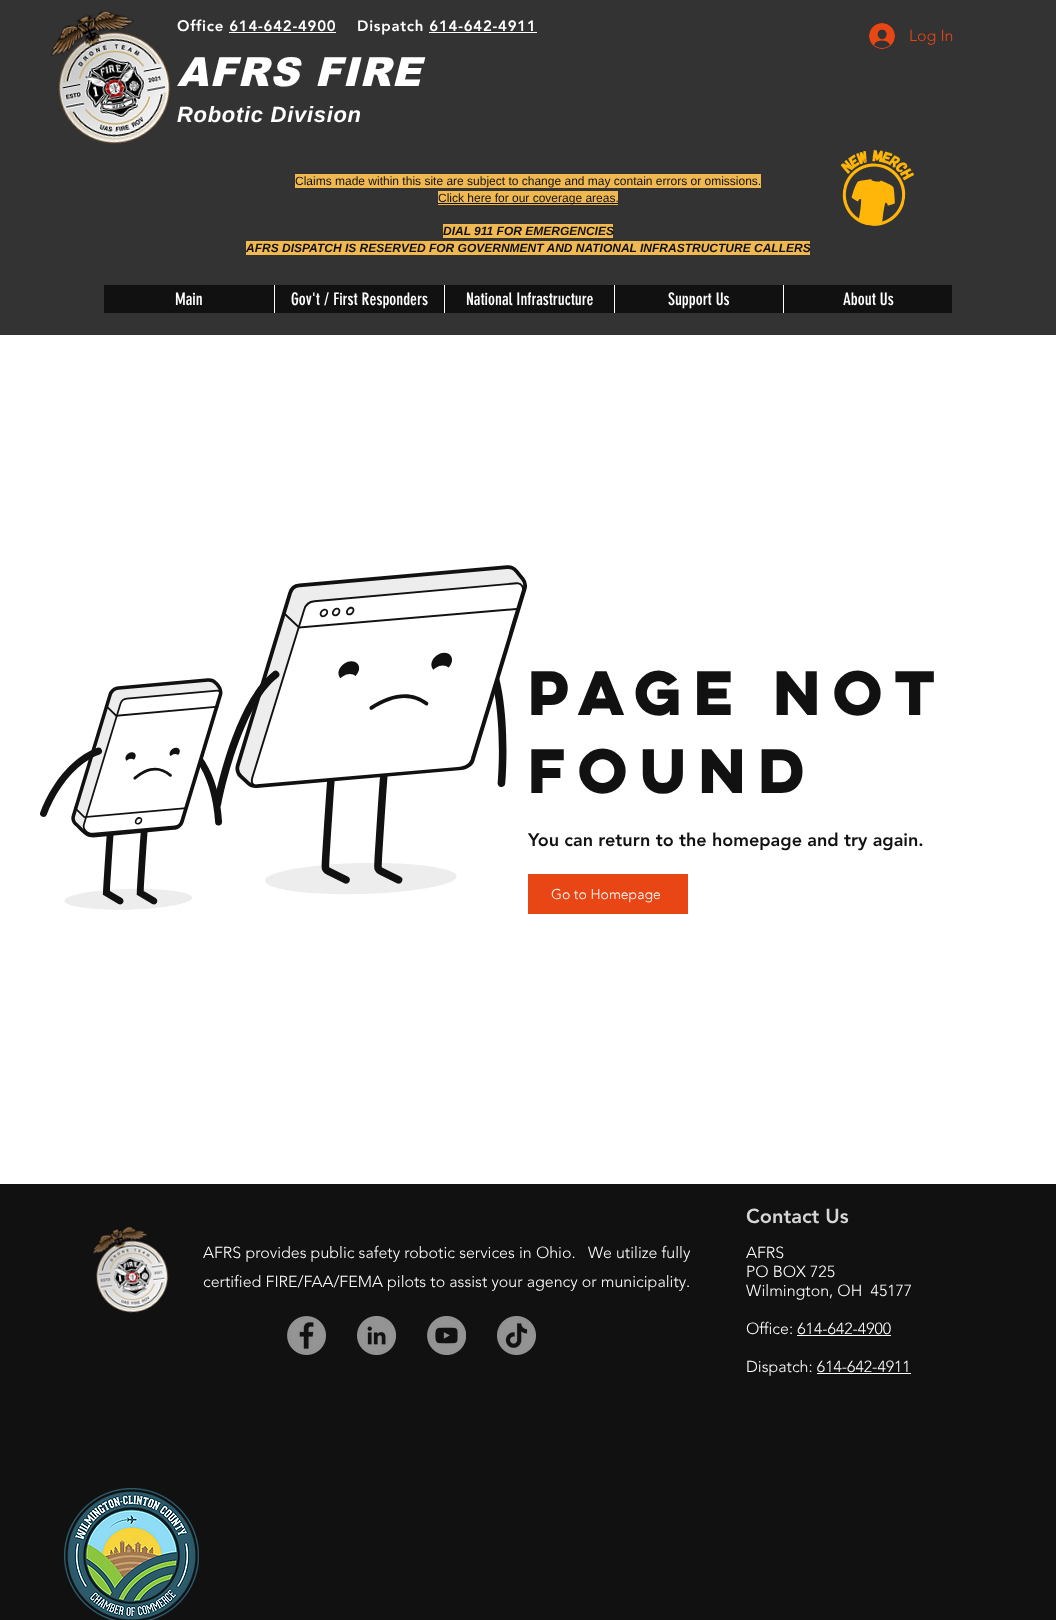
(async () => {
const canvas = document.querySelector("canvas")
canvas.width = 1056
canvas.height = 1620
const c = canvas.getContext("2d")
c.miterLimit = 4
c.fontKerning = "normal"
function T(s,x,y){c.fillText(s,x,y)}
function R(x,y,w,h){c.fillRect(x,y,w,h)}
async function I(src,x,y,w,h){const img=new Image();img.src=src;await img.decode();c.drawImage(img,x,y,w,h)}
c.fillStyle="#fff"
R(0,0,1056,1620)
c.fillStyle="#333"
R(0,0,1056,335)
await I("1.png",51,10,120,134)
c.letterSpacing="0.75px"
c.font="900 15px 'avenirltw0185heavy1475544'"
c.fillStyle="#fff"
T("Office 614-642-4900",177,31)
R(229,32,107,1)
T("Dispatch 614-642-4911",357,31)
R(429,32,108,1)
await I("2.png",869,23,26,26)
c.letterSpacing="0px"
c.font="300 16px 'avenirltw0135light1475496'"
c.fillStyle="#e94615"
T("Log In",909,41)
c.letterSpacing="1.25px"
c.font="italic 900 40px arial"
c.fillStyle="#fff"
T("AFRS FIRE",177,86)
c.letterSpacing="0.7px"
c.font="italic bold 22px Liberation Sans"
T("Robotic Division",177,122)
c.fillStyle="#f0b851"
R(295,174,466,14)
c.letterSpacing="0px"
c.font="12px Liberation Sans"
c.fillStyle="#111"
T("Claims made within this site are subject to change and may contain errors or omissions.",295,185)
c.fillStyle="#f0b851"
R(438,191,180,14)
c.fillStyle="#111"
R(438,203,180,1)
T("Click here for our coverage areas.",438,202)
c.fillStyle="#f0b851"
R(443,224,170,14)
c.font="italic bold 12px Liberation Sans"
c.fillStyle="#111"
T("DIAL 911 FOR EMERGENCIES",443,235)
c.fillStyle="#f0b851"
R(246,241,564,14)
c.fillStyle="#111"
T("AFRS DISPATCH IS RESERVED FOR GOVERNMENT AND NATIONAL INFRASTRUCTURE CALLERS",246,252)
await I("3.png",840,149,74,77)
R(104,285,848,28)
c.font="17px 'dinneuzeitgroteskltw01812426'"
c.fillStyle="#fff"
T("Main",175,305)
R(274,285,1,28)
T("Gov't / First Responders",291,305)
R(444,285,1,28)
T("National Infrastructure",466,305)
R(614,285,1,28)
T("Support Us",668,305)
R(783,285,1,28)
T("About Us",843,305)
await I("4.png",40,565,487,345)
c.wordSpacing="-1px"
c.font="bold 56px 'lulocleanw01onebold'"
c.fillStyle="#111"
T("Page Not",528,715)
c.wordSpacing="0px"
T("Found",528,793)
c.font="900 18px 'avenirltw0185heavy1475544'"
T("You can return to the homepage and try again.",528,846)
c.fillStyle="#e94615"
R(528,874,160,40)
c.font="300 14px 'avenirltw0135light1475496'"
c.fillStyle="#fff"
T("Go to Homepage",551,899)
c.fillStyle="#111"
R(0,1184,1056,436)
c.font="900 20px 'avenirltw0185heavy1475544'"
c.fillStyle="#d6d6d6"
T("Contact Us",746,1223)
await I("5.png",93,1226,76,87)
c.font="300 16px 'avenirltw0135light1475496'"
c.fillStyle="#fff"
T("AFRS provides public safety robotic services in Ohio.   We utilize fully",203,1258)
T("certified FIRE/FAA/FEMA pilots to assist your agency or municipality.",203,1287)
T("AFRS",746,1258)
T("PO BOX 725",746,1277)
T("Wilmington, OH  45177",746,1296)
T("Office: 614-642-4900",746,1334)
R(797,1335,94,1)
T("Dispatch: 614-642-4911",746,1372)
R(817,1373,94,1)
await I("6.png",287,1316,39,39)
await I("7.png",357,1316,39,39)
await I("8.png",427,1316,39,39)
await I("9.png",497,1316,39,39)
await I("10.png",64,1488,135,132)
})()
